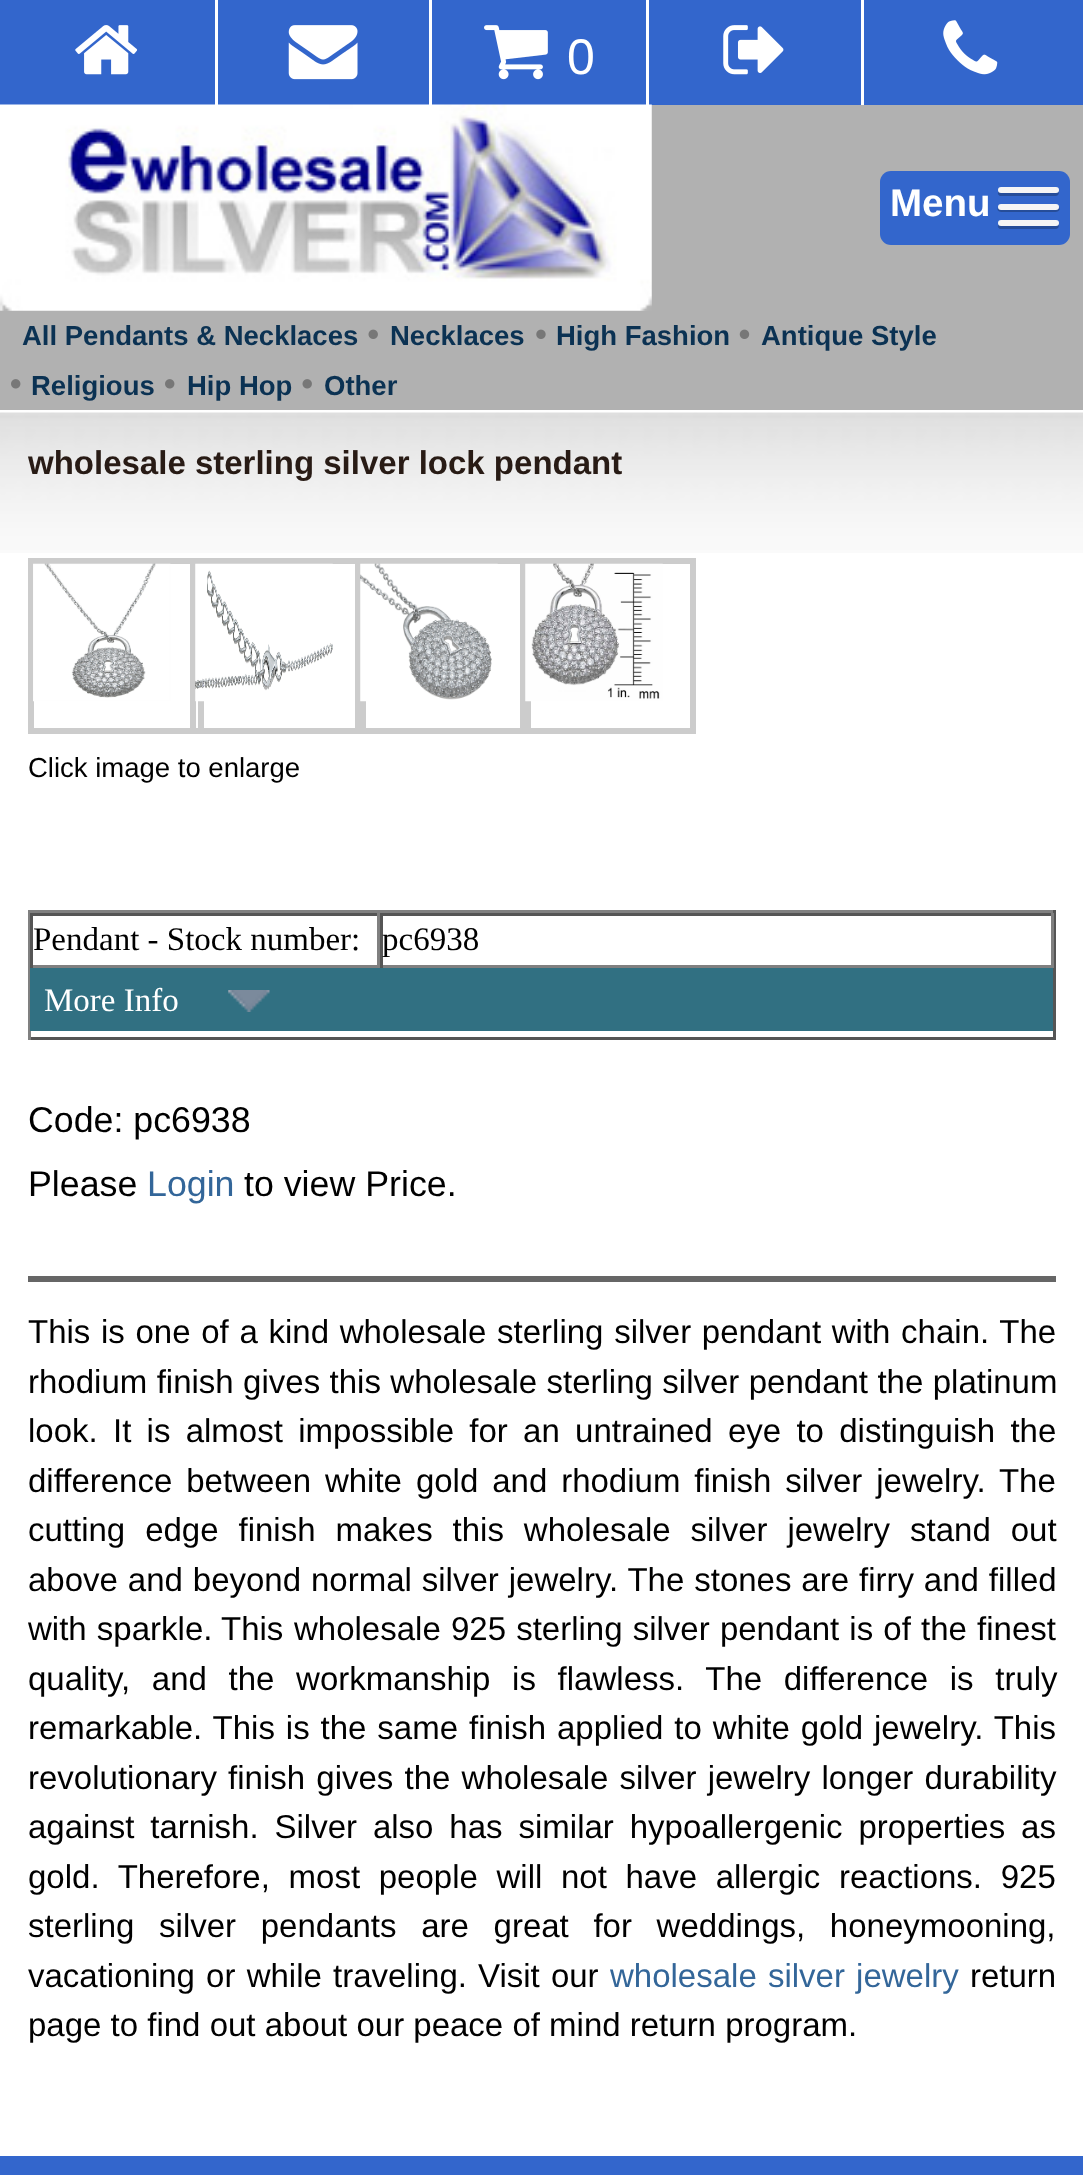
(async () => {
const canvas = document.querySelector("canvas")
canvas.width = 1083
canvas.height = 2175
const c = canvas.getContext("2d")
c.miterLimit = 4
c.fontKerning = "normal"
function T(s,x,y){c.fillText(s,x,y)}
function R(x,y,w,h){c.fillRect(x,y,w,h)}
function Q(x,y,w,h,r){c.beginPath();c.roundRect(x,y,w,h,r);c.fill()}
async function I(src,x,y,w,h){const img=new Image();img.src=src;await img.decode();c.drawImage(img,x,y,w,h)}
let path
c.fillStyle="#b1b1b1"
R(0,0,1083,2175)
c.fillStyle="#fff"
R(0,410,1083,3)
c.fillStyle="#36c"
R(0,0,1083,105)
c.fillStyle="#fff"
R(215,0,3,105)
await I("1.png",75,25,63,50)
R(429,0,3,105)
await I("2.png",288,25,70,55)
R(646,0,3,105)
await I("3.png",484,25,64,55)
c.font="50px Liberation Sans"
T("0",567,74)
R(861,0,3,105)
await I("4.png",723,25,61,50)
await I("5.png",943,20,55,55)
await I("6.png",0,104,652,207)
c.fillStyle="#36c"
Q(880,171,190,74,11)
c.font="bold 38.5px Liberation Sans"
c.fillStyle="#fff"
T("Menu",890,216)
c.fillStyle="#264d99"
path = new Path2D("M999 191c-2 2-1 4 1 5h56c2 0 4-3 2-5l-2 1h-55z")
c.fill(path)
c.fillStyle="#f5f5f5"
Q(998,187,61,6,3)
c.fillStyle="#264d99"
path = new Path2D("M998 207c-3 6 6 5 12 5h37c6 0 15 1 12-5l-3 2h-55z")
c.fill(path)
c.fillStyle="#f5f5f5"
Q(998,204,61,6,3)
c.fillStyle="#264d99"
path = new Path2D("M999 224c-2 2-1 4 1 5h56c2 0 4-3 2-5l-2 1h-55z")
c.fill(path)
c.fillStyle="#f5f5f5"
Q(998,220,61,6,3)
c.font="bold 27.5px Liberation Sans"
c.fillStyle="#0b3253"
T("All Pendants & Necklaces",22,345)
await I("7.png",368,329,10,10)
T("Necklaces",390,345)
await I("8.png",536,329,10,10)
T("High Fashion",556,345)
await I("9.png",739,329,11,10)
T("Antique Style",761,345)
await I("10.png",11,379,10,10)
T("Religious",31,395)
await I("10.png",165,379,10,10)
T("Hip Hop",187,395)
await I("11.png",302,379,10,10)
T("Other",324,395)
c.fillStyle="#fff"
R(0,553,1083,1603)
await I("12.png",0,412,1083,141)
c.font="bold 33px Liberation Sans"
c.fillStyle="#281b15"
T("wholesale sterling silver lock pendant",28,474)
c.strokeStyle="#ccc"
c.lineWidth=6
c.strokeRect(31,561,170,170)
await I("13.png",33,563,138,139)
c.strokeRect(193,561,170,170)
await I("14.png",195,563,138,139)
c.strokeRect(358,561,170,170)
await I("15.png",360,563,138,139)
c.strokeRect(523,561,170,170)
await I("16.png",525,563,138,139)
c.font="27.5px Liberation Sans"
c.fillStyle="#000"
T("Click image to enlarge",28,777)
c.fillStyle="#808080"
R(28,910,1028,3)
c.fillStyle="#555"
R(1053,910,3,130)
R(28,1037,1028,3)
c.fillStyle="#808080"
R(28,910,3,130)
c.fillStyle="#555"
R(30,913,1023,3)
c.fillStyle="#808080"
R(377,913,3,55)
R(30,965,350,3)
c.fillStyle="#555"
R(30,913,3,55)
c.font="33px Liberation Serif"
c.fillStyle="#000"
T("Pendant - Stock number:",33,950)
c.fillStyle="#808080"
R(1051,913,3,55)
R(380,965,673,3)
c.fillStyle="#555"
R(380,913,3,55)
c.fillStyle="#000"
T("pc6938",382,950)
c.fillStyle="#317082"
R(30,968,1023,63)
c.fillStyle="#fff"
T("More Info",44,1011)
await I("17.png",228,990,42,22)
c.font="35.75px Liberation Sans"
c.fillStyle="#000"
T("Code: pc6938",28,1132)
T("Please",28,1196)
c.fillStyle="#369"
T("Login",147,1196)
c.fillStyle="#000"
T("to view Price.",244,1196)
c.fillStyle="#666"
R(28,1276,1028,6)
c.wordSpacing="1.5px"
c.font="33px Liberation Sans"
c.fillStyle="#000"
T("This is one of a kind wholesale sterling silver pendant with chain. The",28,1343)
c.wordSpacing="0.25px"
T("rhodium finish gives this wholesale sterling silver pendant the platinum",28,1393)
c.wordSpacing="6.1px"
T("look. It is almost impossible for an untrained eye to distinguish the",28,1442)
c.wordSpacing="4.75px"
T("difference between white gold and rhodium finish silver jewelry. The",28,1492)
c.wordSpacing="10.75px"
T("cutting edge finish makes this wholesale silver jewelry stand out",28,1541)
c.wordSpacing="0.75px"
T("above and beyond normal silver jewelry. The stones are firry and filled",28,1591)
c.wordSpacing="1px"
T("with sparkle.",28,1640)
c.wordSpacing="0px"
T("This",221,1640)
c.wordSpacing="1px"
T("wholesale 925 sterling silver pendant is of the finest",294,1640)
c.wordSpacing="12.5px"
T("quality, and the workmanship is flawless. The difference is truly",28,1690)
c.wordSpacing="1.75px"
T("remarkable. This is the same finish applied to white gold jewelry. This",28,1739)
c.wordSpacing="2px"
T("revolutionary finish gives the wholesale silver jewelry longer durability",28,1789)
c.wordSpacing="6.75px"
T("against tarnish. Silver also has similar hypoallergenic properties as",28,1838)
c.wordSpacing="9.5px"
T("gold. Therefore, most people will not have allergic reactions. 925",28,1888)
c.wordSpacing="15.5px"
T("sterling silver pendants are great for weddings, honeymooning,",28,1937)
c.wordSpacing="2px"
T("vacationing or while traveling.",28,1987)
T("Visit our",478,1987)
c.fillStyle="#369"
T("wholesale silver jewelry",610,1987)
c.wordSpacing="0px"
c.fillStyle="#000"
T("return",970,1987)
T("page to find out about our peace of mind return program.",28,2036)
c.fillStyle="#36c"
R(0,2156,1083,19)
})()
